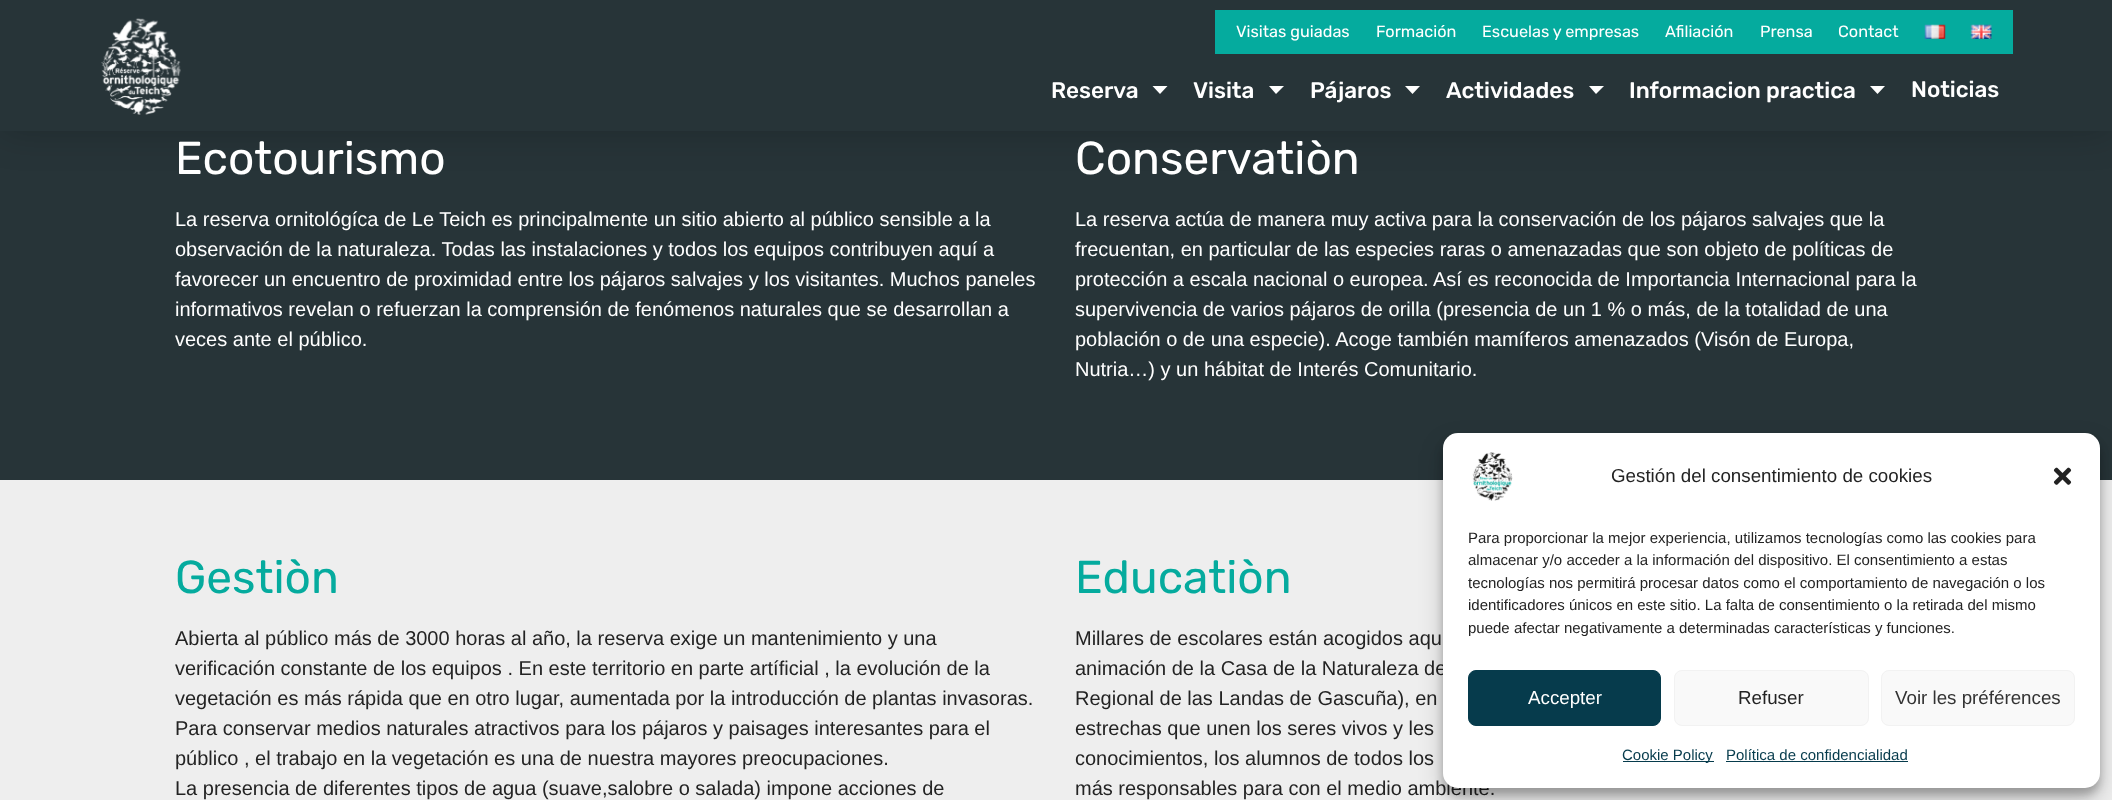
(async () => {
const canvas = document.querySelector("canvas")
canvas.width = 2112
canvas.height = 800
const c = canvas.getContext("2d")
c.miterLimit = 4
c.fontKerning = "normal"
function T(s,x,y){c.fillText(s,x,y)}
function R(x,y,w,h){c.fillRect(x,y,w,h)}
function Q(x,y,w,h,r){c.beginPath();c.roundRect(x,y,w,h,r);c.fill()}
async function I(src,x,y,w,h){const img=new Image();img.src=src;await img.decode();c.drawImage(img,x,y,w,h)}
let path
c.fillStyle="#273438"
R(0,0,2112,800)
c.fillStyle="#00000033"
c.filter="blur(19px)"
c.beginPath()
c.rect(0,0,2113,131)
c.fill()
c.filter="none"
c.fillStyle="#273438"
R(0,0,2112,131)
await I("1.png",101,18,80,97)
c.fillStyle="#05ab9e"
R(1215,10,798,44)
c.font="16.25px Rubik"
c.fillStyle="#fff"
T("Visitas guiadas",1236,37)
T("Formación",1376,37)
T("Escuelas y empresas",1482,37)
T("Afiliación",1665,37)
T("Prensa",1760,37)
T("Contact",1838,37)
await I("2.png",1924,24,22,15)
await I("3.png",1970,24,22,15)
c.font="500 22.5px Rubik"
T("Reserva",1051,98)
path = new Path2D("M1152.5 86h15l-7.5 8z")
c.fill(path)
T("Visita",1193,98)
path = new Path2D("M1269 86h15l-8 8z")
c.fill(path)
T("Pájaros",1310,98)
path = new Path2D("M1405 86h15l-7.5 8z")
c.fill(path)
T("Actividades",1446,98)
path = new Path2D("M1589 86h15l-8 8z")
c.fill(path)
T("Informacion practica",1629,98)
path = new Path2D("M1870 86h15l-7.5 8z")
c.fill(path)
T("Noticias",1911,97)
c.font="46px Rubik"
T("Ecotourismo",175,174)
c.font="20px Liberation Sans"
T("La reserva ornitológíca de Le Teich es principalmente un sitio abierto al público sensible a la",175,226)
T("observación de la naturaleza. Todas las instalaciones y todos los equipos contribuyen aquí a",175,256)
T("favorecer un encuentro de proximidad entre los pájaros salvajes y los visitantes. Muchos paneles",175,286)
T("informativos revelan o refuerzan la comprensión de fenómenos naturales que se desarrollan a",175,316)
T("veces ante el público.",175,346)
c.font="46px Rubik"
T("Conservatiòn",1075,174)
c.font="20px Liberation Sans"
T("La reserva actúa de manera muy activa para la conservación de los pájaros salvajes que la",1075,226)
T("frecuentan, en particular de las especies raras o amenazadas que son objeto de políticas de",1075,256)
T("protección a escala nacional o europea. Así es reconocida de Importancia Internacional para la",1075,286)
T("supervivencia de varios pájaros de orilla (presencia de un 1 % o más, de la totalidad de una",1075,316)
T("población o de una especie). Acoge también mamíferos amenazados (Visón de Europa,",1075,346)
T("Nutria…) y un hábitat de Interés Comunitario.",1075,376)
c.fillStyle="#eee"
R(0,480,2112,320)
c.font="46px Rubik"
c.fillStyle="#05ab9e"
T("Gestiòn",175,593)
c.font="20px Liberation Sans"
c.fillStyle="#232323"
T("Abierta al público más de 3000 horas al año, la reserva exige un mantenimiento y una",175,645)
T("verificación constante de los equipos . En este territorio en parte artíficial , la evolución de la",175,675)
T("vegetación es más rápida que en otro lugar, aumentada por la introducción de plantas invasoras.",175,705)
T("Para conservar medios naturales atractivos para los pájaros y paisages interesantes para el",175,735)
T("público , el trabajo en la vegetación es una de nuestra mayores preocupaciones.",175,765)
T("La presencia de diferentes tipos de agua (suave,salobre o salada) impone acciones de",175,795)
c.font="46px Rubik"
c.fillStyle="#05ab9e"
T("Educatiòn",1075,593)
c.font="20px Liberation Sans"
c.fillStyle="#232323"
T("Millares de escolares están acogidos aqu",1075,645)
T("animación de la Casa de la Naturaleza de",1075,675)
T("Regional de las Landas de Gascuña), en",1075,705)
T("estrechas que unen los seres vivos y les",1075,735)
T("conocimientos, los alumnos de todos los",1075,765)
T("más responsables para con el medio ambiente.",1075,795)
c.fillStyle="#0000003b"
c.filter="blur(4px)"
c.beginPath()
c.roundRect(1443,440,657,355,15)
c.fill()
c.filter="none"
c.fillStyle="#00000030"
c.filter="blur(12.5px)"
c.beginPath()
c.roundRect(1443,445,657,355,15)
c.fill()
c.filter="none"
c.fillStyle="#fff"
Q(1443,433,657,355,15)
await I("4.png",1472,452,41,49)
c.font="18.75px Liberation Sans"
c.fillStyle="#232323"
T("Gestión del consentimiento de cookies",1611,482)
await I("5.png",2053,467,19,18)
c.font="15px Liberation Sans"
T("Para proporcionar la mejor experiencia, utilizamos tecnologías como las cookies para",1468,543)
T("almacenar y/o acceder a la información del dispositivo. El consentimiento a estas",1468,565)
T("tecnologías nos permitirá procesar datos como el comportamiento de navegación o los",1468,588)
T("identificadores únicos en este sitio. La falta de consentimiento o la retirada del mismo",1468,610)
T("puede afectar negativamente a determinadas características y funciones.",1468,633)
c.fillStyle="#063b4c"
c.beginPath()
c.roundRect(1468.5,670.5,192,55,7.5)
c.fill()
c.strokeStyle="#063b4c"
c.stroke()
c.font="18.75px Liberation Sans"
c.fillStyle="#fff"
T("Accepter",1528,704)
c.fillStyle="#f9f9f9"
c.beginPath()
c.roundRect(1674.5,670.5,194,55,7.5)
c.fill()
c.strokeStyle="#f2f2f2"
c.stroke()
c.fillStyle="#232323"
T("Refuser",1738,704)
c.fillStyle="#f9f9f9"
c.beginPath()
c.roundRect(1881.5,670.5,193,55,7.5)
c.fill()
c.stroke()
c.fillStyle="#333"
T("Voir les préférences",1895,704)
c.fillStyle="#063b4c"
R(1623,761,91,1)
c.font="15px Liberation Sans"
T("Cookie Policy",1622,760)
T("Política de confidencialidad",1726,760)
R(1726,761,182,1)
})()
